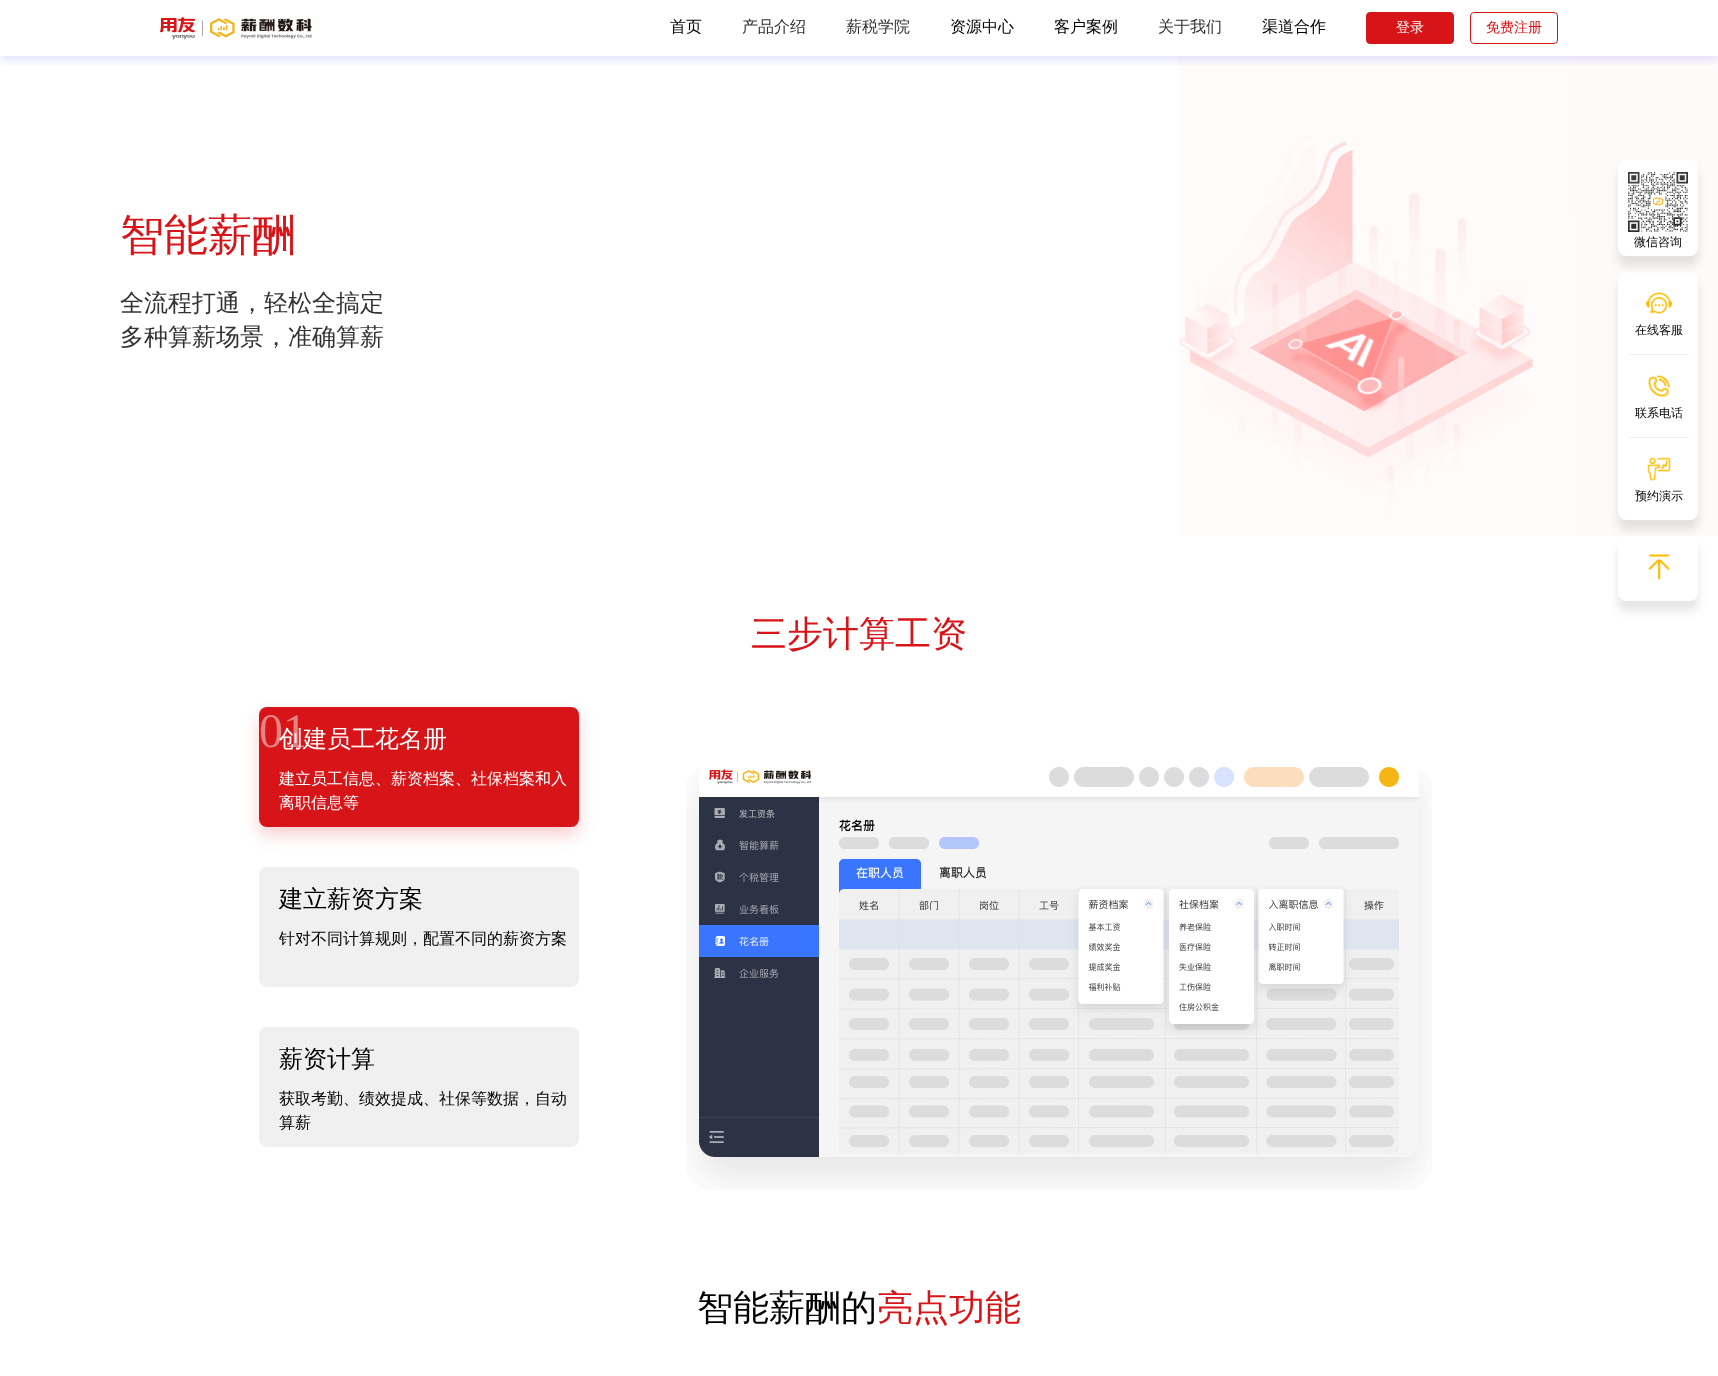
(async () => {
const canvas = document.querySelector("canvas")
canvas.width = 1718
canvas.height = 1376
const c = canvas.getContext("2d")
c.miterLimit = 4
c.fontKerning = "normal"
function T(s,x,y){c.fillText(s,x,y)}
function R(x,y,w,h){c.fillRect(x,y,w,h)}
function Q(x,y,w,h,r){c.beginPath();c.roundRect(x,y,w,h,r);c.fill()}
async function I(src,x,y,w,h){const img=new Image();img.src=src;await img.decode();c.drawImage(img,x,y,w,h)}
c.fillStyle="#fff"
R(0,0,1718,1376)
await I("2.png",1179,56,539,480)
c.save()
c.beginPath()
c.rect(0,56,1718,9)
c.clip()
c.fillStyle="#0000fa1a"
c.filter="blur(5px)"
c.beginPath()
c.rect(0,5,1718,56)
c.fill()
c.filter="none"
c.restore()
await I("1.png",160,17,152,23)
c.font="500 16px WenQuanYi Zen Hei"
c.fillStyle="#000"
T("首页",670,32)
c.fillStyle="#323232"
T("产品介绍",742,32)
T("薪税学院",846,32)
c.fillStyle="#000"
T("资源中心",950,32)
T("客户案例",1054,32)
c.fillStyle="#323232"
T("关于我们",1158,32)
c.fillStyle="#000"
T("渠道合作",1262,32)
c.fillStyle="#d71518"
c.beginPath()
c.roundRect(1366.5,12.5,87,31,3.5)
c.fill()
c.strokeStyle="#d71518"
c.stroke()
c.font="500 14px WenQuanYi Zen Hei"
c.fillStyle="#fff"
T("登录",1396,32)
c.beginPath()
c.roundRect(1470.5,12.5,87,31,3.5)
c.stroke()
c.fillStyle="#d71518"
T("免费注册",1486,32)
c.font="500 44px WenQuanYi Zen Hei"
T("智能薪酬",120,250)
c.font="500 24px WenQuanYi Zen Hei"
c.fillStyle="#323232"
T("全流程打通，轻松全搞定",120,311)
T("多种算薪场景，准确算薪",120,345)
c.font="500 36px WenQuanYi Zen Hei"
c.fillStyle="#d71518"
T("三步计算工资",751,646)
c.fillStyle="#d7151833"
c.filter="blur(8px)"
c.beginPath()
c.roundRect(259,715,320,120,8)
c.fill()
c.filter="none"
c.fillStyle="#d71518"
Q(259,707,320,120,8)
c.font="48px Liberation Serif"
c.fillStyle="#e78283"
T("01",259,747)
c.font="500 24px WenQuanYi Zen Hei"
c.fillStyle="#fff"
T("创建员工花名册",279,747)
c.font="500 16px WenQuanYi Zen Hei"
T("建立员工信息、薪资档案、社保档案和入",279,784)
T("离职信息等",279,808)
c.fillStyle="#f0f0f0"
Q(259,867,320,120,8)
c.font="500 24px WenQuanYi Zen Hei"
c.fillStyle="#000"
T("建立薪资方案",279,907)
c.font="500 16px WenQuanYi Zen Hei"
T("针对不同计算规则，配置不同的薪资方案",279,944)
c.fillStyle="#f0f0f0"
Q(259,1027,320,120,8)
c.font="500 24px WenQuanYi Zen Hei"
c.fillStyle="#000"
T("薪资计算",279,1067)
c.font="500 16px WenQuanYi Zen Hei"
T("获取考勤、绩效提成、社保等数据，自动",279,1104)
T("算薪",279,1128)
await I("3.png",686,767,746,423)
c.font="500 36px WenQuanYi Zen Hei"
T("智能薪酬的",697,1320)
c.fillStyle="#d71518"
T("亮点功能",877,1320)
c.fillStyle="#0000001a"
c.filter="blur(5px)"
c.beginPath()
c.roundRect(1618,282,80,248,8)
c.fill()
c.filter="none"
c.fillStyle="#fff"
Q(1618,272,80,248,8)
c.fillStyle="#0000001a"
c.filter="blur(5px)"
c.beginPath()
c.roundRect(1618,170,80,96,8)
c.fill()
c.filter="none"
c.fillStyle="#fff"
Q(1618,160,80,96,8)
await I("4.png",1628,172,60,60)
c.font="500 12px WenQuanYi Zen Hei"
c.fillStyle="#000"
T("微信咨询",1634,246)
c.fillStyle="#f0f0f0"
R(1629,354,60,1)
await I("5.png",1646,292,26,22)
c.fillStyle="#000"
T("在线客服",1635,334)
c.fillStyle="#f0f0f0"
R(1629,437,60,1)
await I("6.png",1648,375,22,22)
c.fillStyle="#000"
T("联系电话",1635,417)
await I("7.png",1647,457,24,24)
T("预约演示",1635,500)
c.fillStyle="#0000001a"
c.filter="blur(5px)"
c.beginPath()
c.roundRect(1618,546,80,65,8)
c.fill()
c.filter="none"
c.fillStyle="#fff"
Q(1618,536,80,65,8)
await I("8.png",1648,554,22,26)
})()
